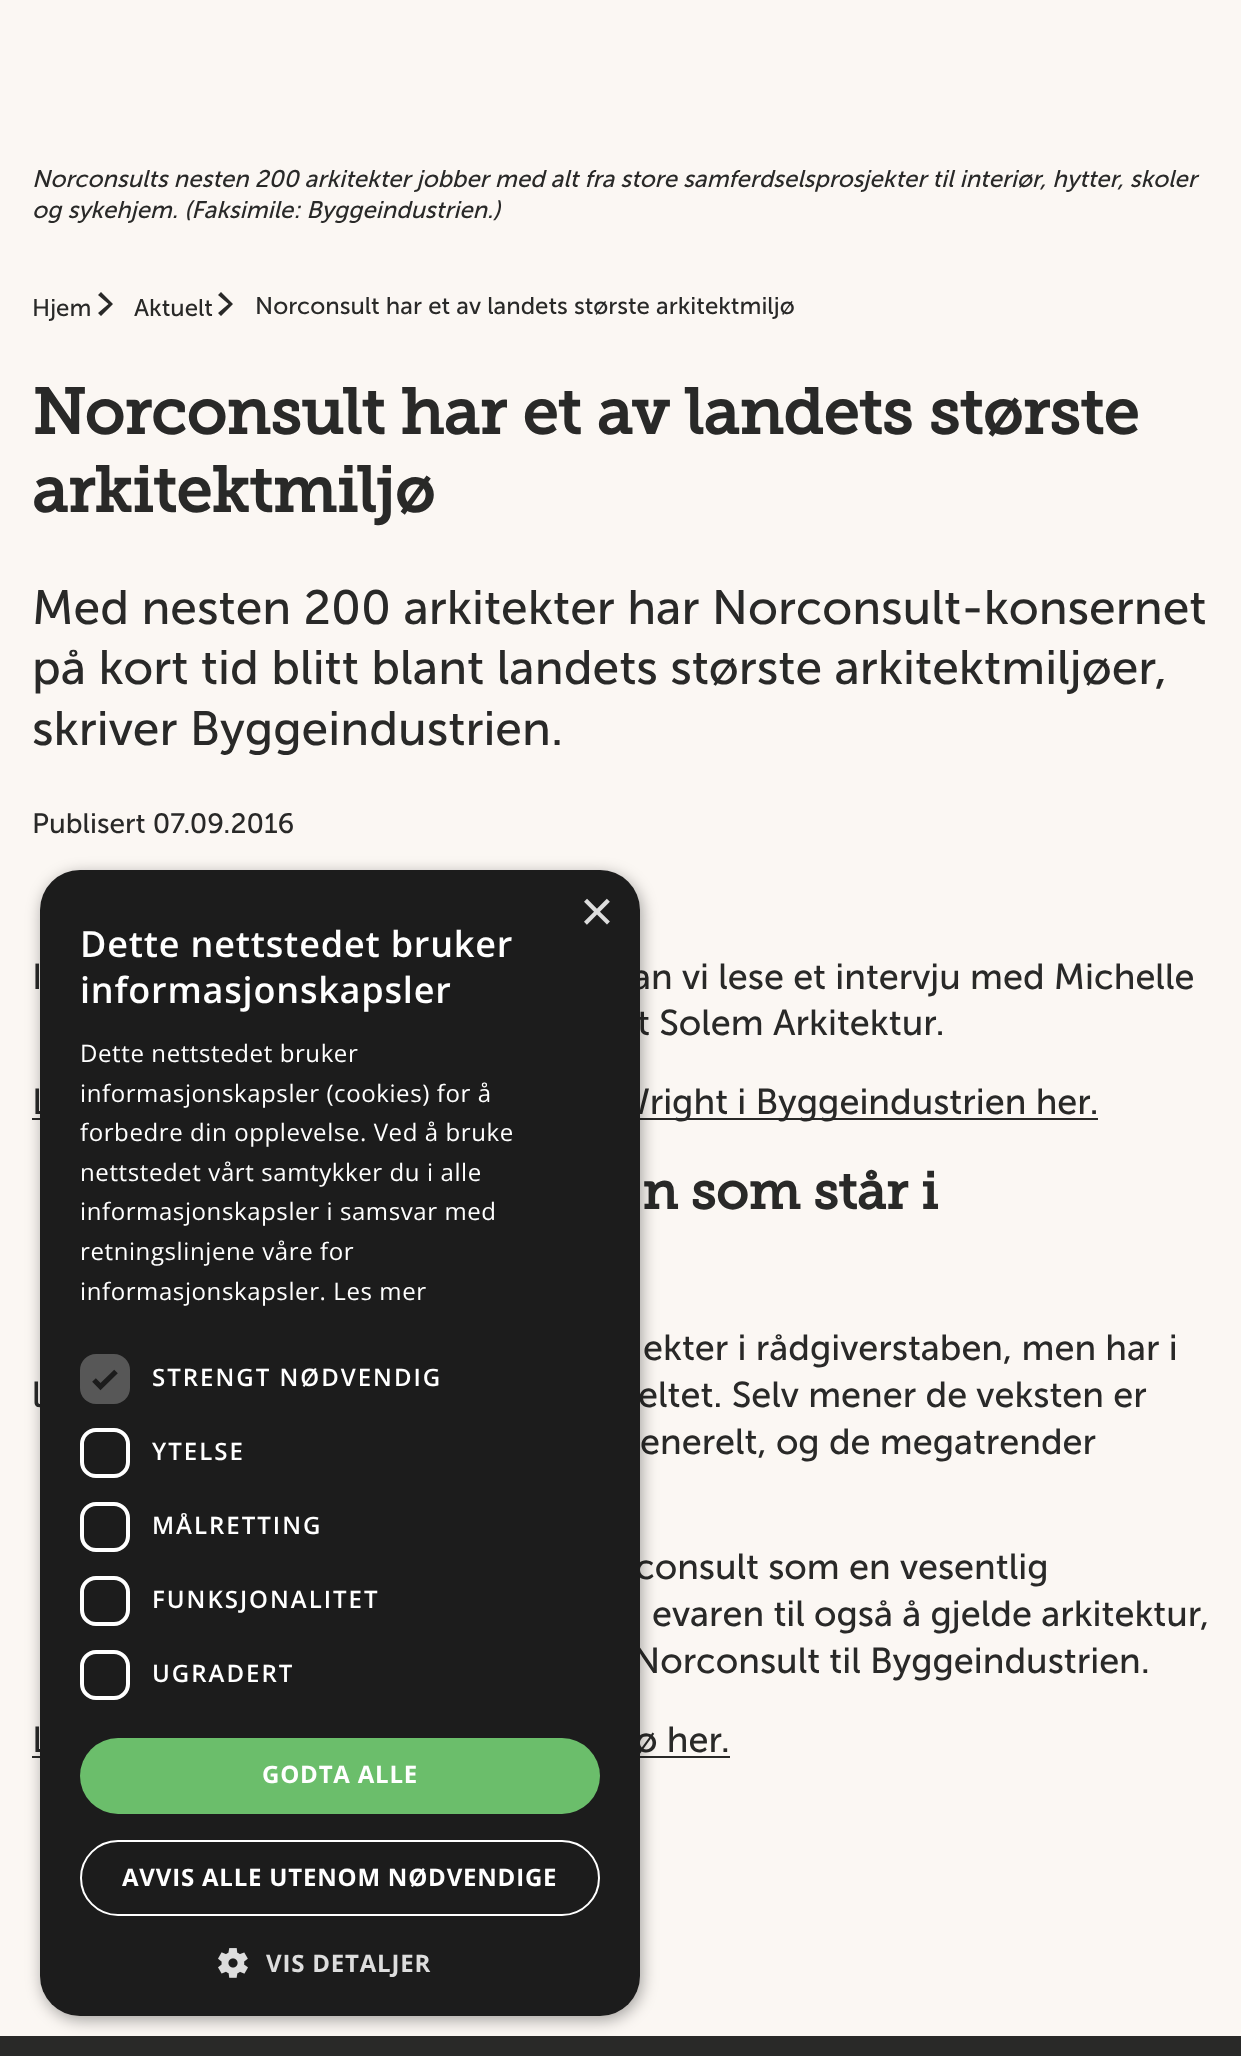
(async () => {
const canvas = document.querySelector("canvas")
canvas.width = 1241
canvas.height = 2056
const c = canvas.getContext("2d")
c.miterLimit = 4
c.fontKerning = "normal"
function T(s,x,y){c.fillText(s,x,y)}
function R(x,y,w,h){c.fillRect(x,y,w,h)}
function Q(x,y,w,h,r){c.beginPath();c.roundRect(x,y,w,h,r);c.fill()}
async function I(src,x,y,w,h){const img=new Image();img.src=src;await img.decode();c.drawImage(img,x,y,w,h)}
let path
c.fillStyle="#fbf7f3"
R(0,0,1241,2056)
c.font="italic 24px Museo Sans"
c.fillStyle="#292928"
T("Norconsults nesten 200 arkitekter jobber med alt fra store samferdselsprosjekter til interiør, hytter, skoler",32,187)
T("og sykehjem. (Faksimile: Byggeindustrien.)",32,218)
c.font="24px Museo Sans"
T("Hjem",32,316)
path = new Path2D("M111.5 302.5l-10.5-10.5l-3 3l10.5 9l-10.5 9l3 3l12-12z")
c.fill(path,"evenodd")
T("Aktuelt",134,316)
path = new Path2D("M231.5 302.5l-10.5-10.5l-3 3l10.5 9l-10.5 9l3 3l12-12z")
c.fill(path,"evenodd")
T("Norconsult har et av landets største arkitektmiljø",255,314)
c.font="bold 64px Museo Slab"
T("Norconsult har et av landets største",32,434)
T("arkitektmiljø",32,512)
c.font="48px Museo Sans"
T("Med nesten 200 arkitekter har Norconsult-konsernet",32,624)
T("på kort tid blitt blant landets største arkitektmiljøer,",32,684)
T("skriver Byggeindustrien.",32,745)
c.font="28px Museo Sans"
T("Publisert 07.09.2016",32,833)
c.font="36px Museo Sans"
T("I",32,989)
T("an vi lese et intervju med Michelle",632,989)
T("t Solem Arkitektur.",637,1035)
T("L",32,1114)
R(32,1118,1066,2)
T("Wright i Byggeindustrien her.",616,1114)
c.font="bold 52px Museo Slab"
T("n som står i",642,1209)
c.font="36px Museo Sans"
T("ekter i rådgiverstaben, men har i",643,1360)
T("l",32,1407)
T("eltet. Selv mener de veksten er",638,1407)
T("enerelt, og de megatrender",640,1454)
T("consult som en vesentlig",635,1579)
T("evaren til også å gjelde arkitektur,",652,1626)
T("Norconsult til Byggeindustrien.",633,1673)
T("L",32,1752)
T("ø her.",635,1752)
R(32,1756,698,2)
R(0,2036,1241,20)
c.fillStyle="#00000059"
c.filter="blur(8px)"
c.beginPath()
c.roundRect(42,874,600,1146,40)
c.fill()
c.filter="none"
c.fillStyle="#1c1c1c"
Q(40,870,600,1146,40)
c.font="58px Liberation Sans"
c.fillStyle="#ddd"
T("×",580,931)
c.letterSpacing="0.8px"
c.font="600 36px Open Sans"
c.fillStyle="#fff"
T("Dette nettstedet bruker",80,957)
T("informasjonskapsler",80,1003)
c.letterSpacing="0.6px"
c.font="24px Open Sans"
T("Dette nettstedet bruker",80,1062)
T("informasjonskapsler (cookies) for å",80,1102)
T("forbedre din opplevelse. Ved å bruke",80,1141)
T("nettstedet vårt samtykker du i alle",80,1181)
T("informasjonskapsler i samsvar med",80,1220)
T("retningslinjene våre for",80,1260)
T("informasjonskapsler. Les mer",80,1300)
c.fillStyle="#575757"
Q(80,1354,50,50,16)
path = new Path2D("M94 1380l6.5 6.5l15.5-15")
c.strokeStyle="#1c1c1c"
c.lineWidth=5.2
c.stroke(path)
c.letterSpacing="2px"
c.font="600 24px Open Sans"
c.fillStyle="#fff"
T("STRENGT NØDVENDIG",152,1386)
c.beginPath()
c.roundRect(82,1430,46,46,14)
c.strokeStyle="#fff"
c.lineWidth=4
c.stroke()
T("YTELSE",152,1460)
c.beginPath()
c.roundRect(82,1504,46,46,14)
c.stroke()
T("MÅLRETTING",152,1534)
c.beginPath()
c.roundRect(82,1578,46,46,14)
c.stroke()
T("FUNKSJONALITET",152,1608)
c.beginPath()
c.roundRect(82,1652,46,46,14)
c.stroke()
T("UGRADERT",152,1682)
c.fillStyle="#6bbe6b"
Q(80,1738,520,76,38)
c.letterSpacing="0.8px"
c.font="bold 24px Open Sans"
c.fillStyle="#fff"
T("GODTA ALLE",262,1783)
c.beginPath()
c.roundRect(81,1841,518,74,37)
c.lineWidth=2
c.stroke()
T("AVVIS ALLE UTENOM NØDVENDIGE",122,1886)
await I("1.png",218,1948,30,30)
c.fillStyle="#ddd"
T("VIS DETALJER",266,1972)
})()
